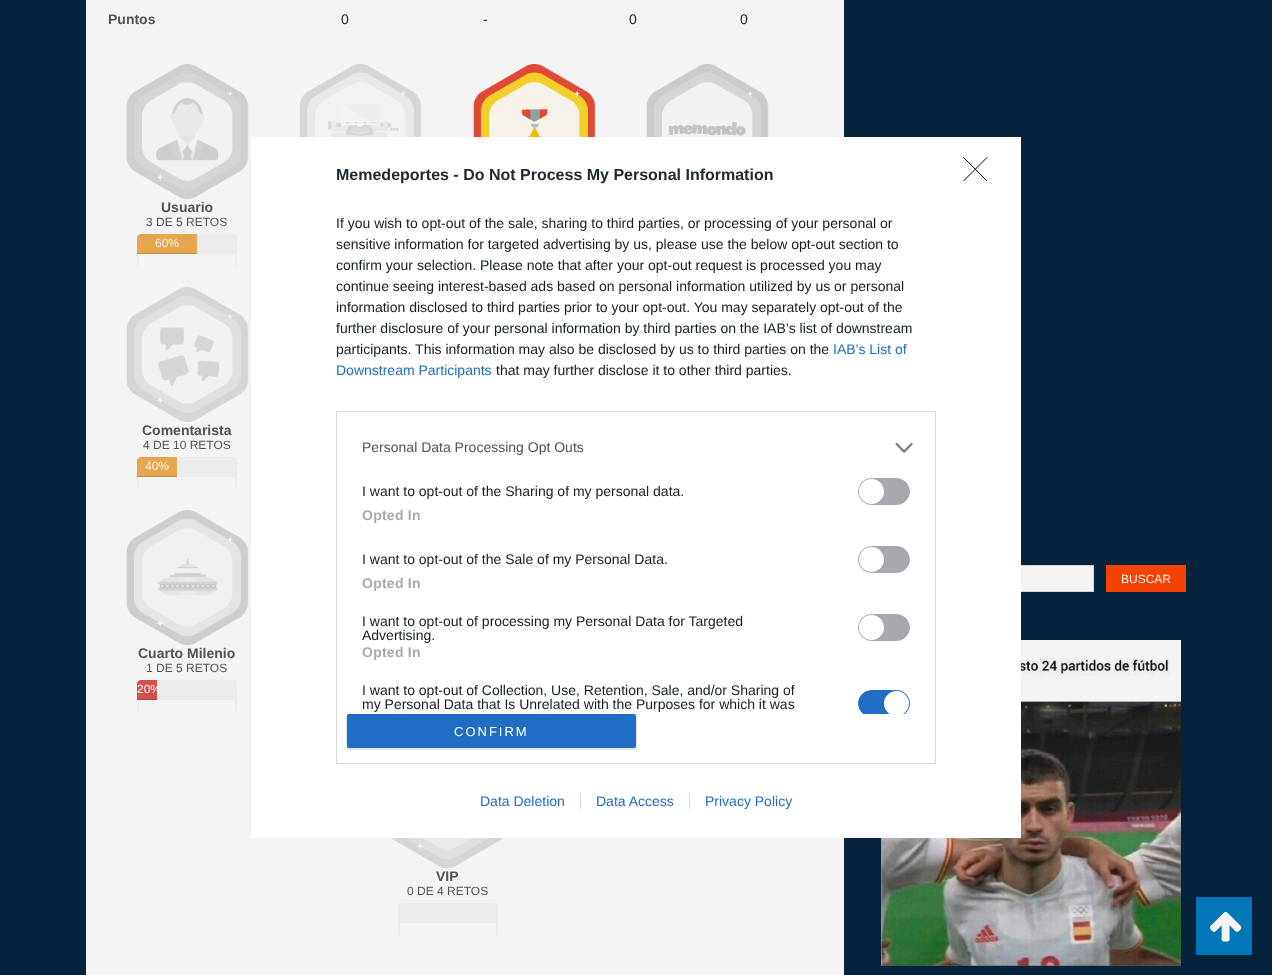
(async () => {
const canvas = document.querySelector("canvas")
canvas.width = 1272
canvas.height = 975
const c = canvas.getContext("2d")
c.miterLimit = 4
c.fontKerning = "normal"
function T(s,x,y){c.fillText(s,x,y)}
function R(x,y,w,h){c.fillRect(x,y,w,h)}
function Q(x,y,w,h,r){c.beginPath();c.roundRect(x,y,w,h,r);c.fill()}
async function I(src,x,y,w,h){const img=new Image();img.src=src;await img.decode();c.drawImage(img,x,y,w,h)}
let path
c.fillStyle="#06233c"
R(0,0,1272,975)
c.fillStyle="#f4f4f5"
R(86,0,758,975)
c.font="bold 14px Liberation Sans"
c.fillStyle="#525353"
T("Puntos",108,24)
c.font="14px Liberation Sans"
c.fillStyle="#222223"
T("0",341,24)
T("-",483,24)
T("0",629,24)
T("0",740,24)
await I("1.png",299,64,123,73)
await I("2.png",473,64,123,73)
await I("3.png",646,64,123,73)
await I("4.png",126,64,123,135)
c.font="bold 14px Liberation Sans"
c.fillStyle="#525353"
T("Usuario",161,212)
c.font="12px Liberation Sans"
T("3 DE 5 RETOS",146,226)
c.fillStyle="#eaebeb"
Q(137,234,100,33,4)
c.fillStyle="#f4f4f5"
R(139,254,96,13)
c.fillStyle="#e6a64d"
path = new Path2D("M141 234c-2 0-4 2-4 4v16h60v-20z")
c.fill(path)
c.fillStyle="#c38e41"
R(137,253,60,1)
c.fillStyle="#f4f4f5"
T("60%",155,247)
await I("5.png",126,287,123,135)
c.font="bold 14px Liberation Sans"
c.fillStyle="#525353"
T("Comentarista",142,435)
c.font="12px Liberation Sans"
T("4 DE 10 RETOS",143,449)
c.fillStyle="#eaebeb"
Q(137,457,100,33,4)
c.fillStyle="#f4f4f5"
R(139,477,96,13)
c.fillStyle="#e6a64d"
path = new Path2D("M141 457c-2 0-4 2-4 4v16h40v-20z")
c.fill(path)
c.fillStyle="#c38e41"
R(137,476,40,1)
c.fillStyle="#f4f4f5"
T("40%",145,470)
await I("6.png",126,510,123,135)
c.font="bold 14px Liberation Sans"
c.fillStyle="#525353"
T("Cuarto Milenio",138,658)
c.font="12px Liberation Sans"
T("1 DE 5 RETOS",146,672)
c.fillStyle="#eaebeb"
Q(137,680,100,33,4)
c.fillStyle="#f4f4f5"
R(139,700,96,13)
c.fillStyle="#d0514e"
path = new Path2D("M141 680c-2 0-4 2-4 4v16h20v-20z")
c.fill(path)
c.fillStyle="#b04642"
R(137,699,20,1)
c.fillStyle="#f4f4f5"
T("20%",137,693)
await I("7.png",392,838,111,30)
c.font="bold 14px Liberation Sans"
c.fillStyle="#525353"
T("VIP",436,881)
c.font="12px Liberation Sans"
T("0 DE 4 RETOS",407,895)
c.fillStyle="#eaebeb"
Q(398,903,100,33,4)
c.fillStyle="#f4f4f5"
R(400,923,96,13)
R(1021,566,72,25)
c.strokeStyle="#d4d4d5"
c.strokeRect(876.5,565.5,217,26)
c.fillStyle="#f44303"
R(1106,565,80,27)
c.fillStyle="#f4f4f5"
T("BUSCAR",1121,583)
await I("8.png",881,640,300,326)
c.fillStyle="#fff"
R(251,137,770,701)
c.font="bold 16px Liberation Sans"
c.fillStyle="#212934"
T("Memedeportes - Do Not Process My Personal Information",336,180)
c.font="14px Liberation Sans"
c.fillStyle="#141e23"
T("If you wish to opt-out of the sale, sharing to third parties, or processing of your personal or",336,228)
T("sensitive information for targeted advertising by us, please use the below opt-out section to",336,249)
T("confirm your selection. Please note that after your opt-out request is processed you may",336,270)
T("continue seeing interest-based ads based on personal information utilized by us or personal",336,291)
T("information disclosed to third parties prior to your opt-out. You may separately opt-out of the",336,312)
T("further disclosure of your personal information by third parties on the IAB’s list of downstream",336,333)
T("participants. This information may also be disclosed by us to third parties on the",336,354)
c.fillStyle="#206dc5"
T("IAB’s List of",833,354)
T("Downstream Participants",336,375)
c.fillStyle="#141e23"
T("that may further disclose it to other third parties.",496,375)
c.strokeStyle="#d8d8d8"
c.strokeRect(336.5,411.5,599,352)
c.fillStyle="#4d545d"
T("Personal Data Processing Opt Outs",362,452)
await I("9.png",895,442,18,11)
c.fillStyle="#141e23"
T("I want to opt-out of the Sharing of my personal data.",362,496)
c.fillStyle="#a6a9ae"
c.beginPath()
c.roundRect(858.5,478.5,51,26,13)
c.fill()
c.strokeStyle="#a6a9ae"
c.stroke()
c.fillStyle="#fff"
c.beginPath()
c.arc(871.5,491.5,12.5,0,7)
c.fill()
c.letterSpacing="0.25px"
c.font="bold 14px Liberation Sans"
c.fillStyle="#a6a9ae"
T("Opted In",362,520)
c.letterSpacing="0px"
c.font="14px Liberation Sans"
c.fillStyle="#141e23"
T("I want to opt-out of the Sale of my Personal Data.",362,564)
c.fillStyle="#a6a9ae"
c.beginPath()
c.roundRect(858.5,546.5,51,26,13)
c.fill()
c.stroke()
c.fillStyle="#fff"
c.beginPath()
c.arc(871.5,559.5,12.5,0,7)
c.fill()
c.letterSpacing="0.25px"
c.font="bold 14px Liberation Sans"
c.fillStyle="#a6a9ae"
T("Opted In",362,588)
c.letterSpacing="0px"
c.font="14px Liberation Sans"
c.fillStyle="#141e23"
T("I want to opt-out of processing my Personal Data for Targeted",362,626)
T("Advertising.",362,640)
c.fillStyle="#a6a9ae"
c.beginPath()
c.roundRect(858.5,614.5,51,26,13)
c.fill()
c.stroke()
c.fillStyle="#fff"
c.beginPath()
c.arc(871.5,627.5,12.5,0,7)
c.fill()
c.letterSpacing="0.25px"
c.font="bold 14px Liberation Sans"
c.fillStyle="#a6a9ae"
T("Opted In",362,657)
c.letterSpacing="0px"
c.font="14px Liberation Sans"
c.fillStyle="#141e23"
T("I want to opt-out of Collection, Use, Retention, Sale, and/or Sharing of",362,695)
T("my Personal Data that Is Unrelated with the Purposes for which it was",362,709)
c.save()
c.beginPath()
c.rect(347,422,578,292)
c.clip()
c.fillStyle="#206dc5"
c.beginPath()
c.roundRect(858.5,690.5,51,26,13)
c.fill()
c.strokeStyle="#206dc5"
c.stroke()
c.fillStyle="#fff"
c.beginPath()
c.arc(896.5,703.5,12.5,0,7)
c.fill()
c.restore()
c.fillStyle="#0000001a"
c.filter="blur(0.5px)"
c.beginPath()
c.roundRect(346,714,291,36,3)
c.fill()
c.filter="none"
c.fillStyle="#206dc5"
Q(347,714,289,34,2)
c.letterSpacing="2px"
c.font="13px Liberation Sans"
c.fillStyle="#fff"
T("CONFIRM",454,736)
c.save()
c.beginPath()
c.rect(963,157,25,24)
c.clip()
path = new Path2D("M963.5 157.5l23.5 23.5m0-23.5l-23.5 23.5")
c.strokeStyle="#000"
c.lineCap="round"
c.lineJoin="round"
c.stroke(path)
c.restore()
c.letterSpacing="0px"
c.font="14px Liberation Sans"
c.fillStyle="#206dc5"
T("Data Deletion",480,806)
T("Data Access",596,806)
c.fillStyle="#d8d8d8"
R(580,793,1,16)
c.fillStyle="#206dc5"
T("Privacy Policy",705,806)
c.fillStyle="#d8d8d8"
R(689,793,1,16)
await I("10.png",1196,897,56,58)
})()
